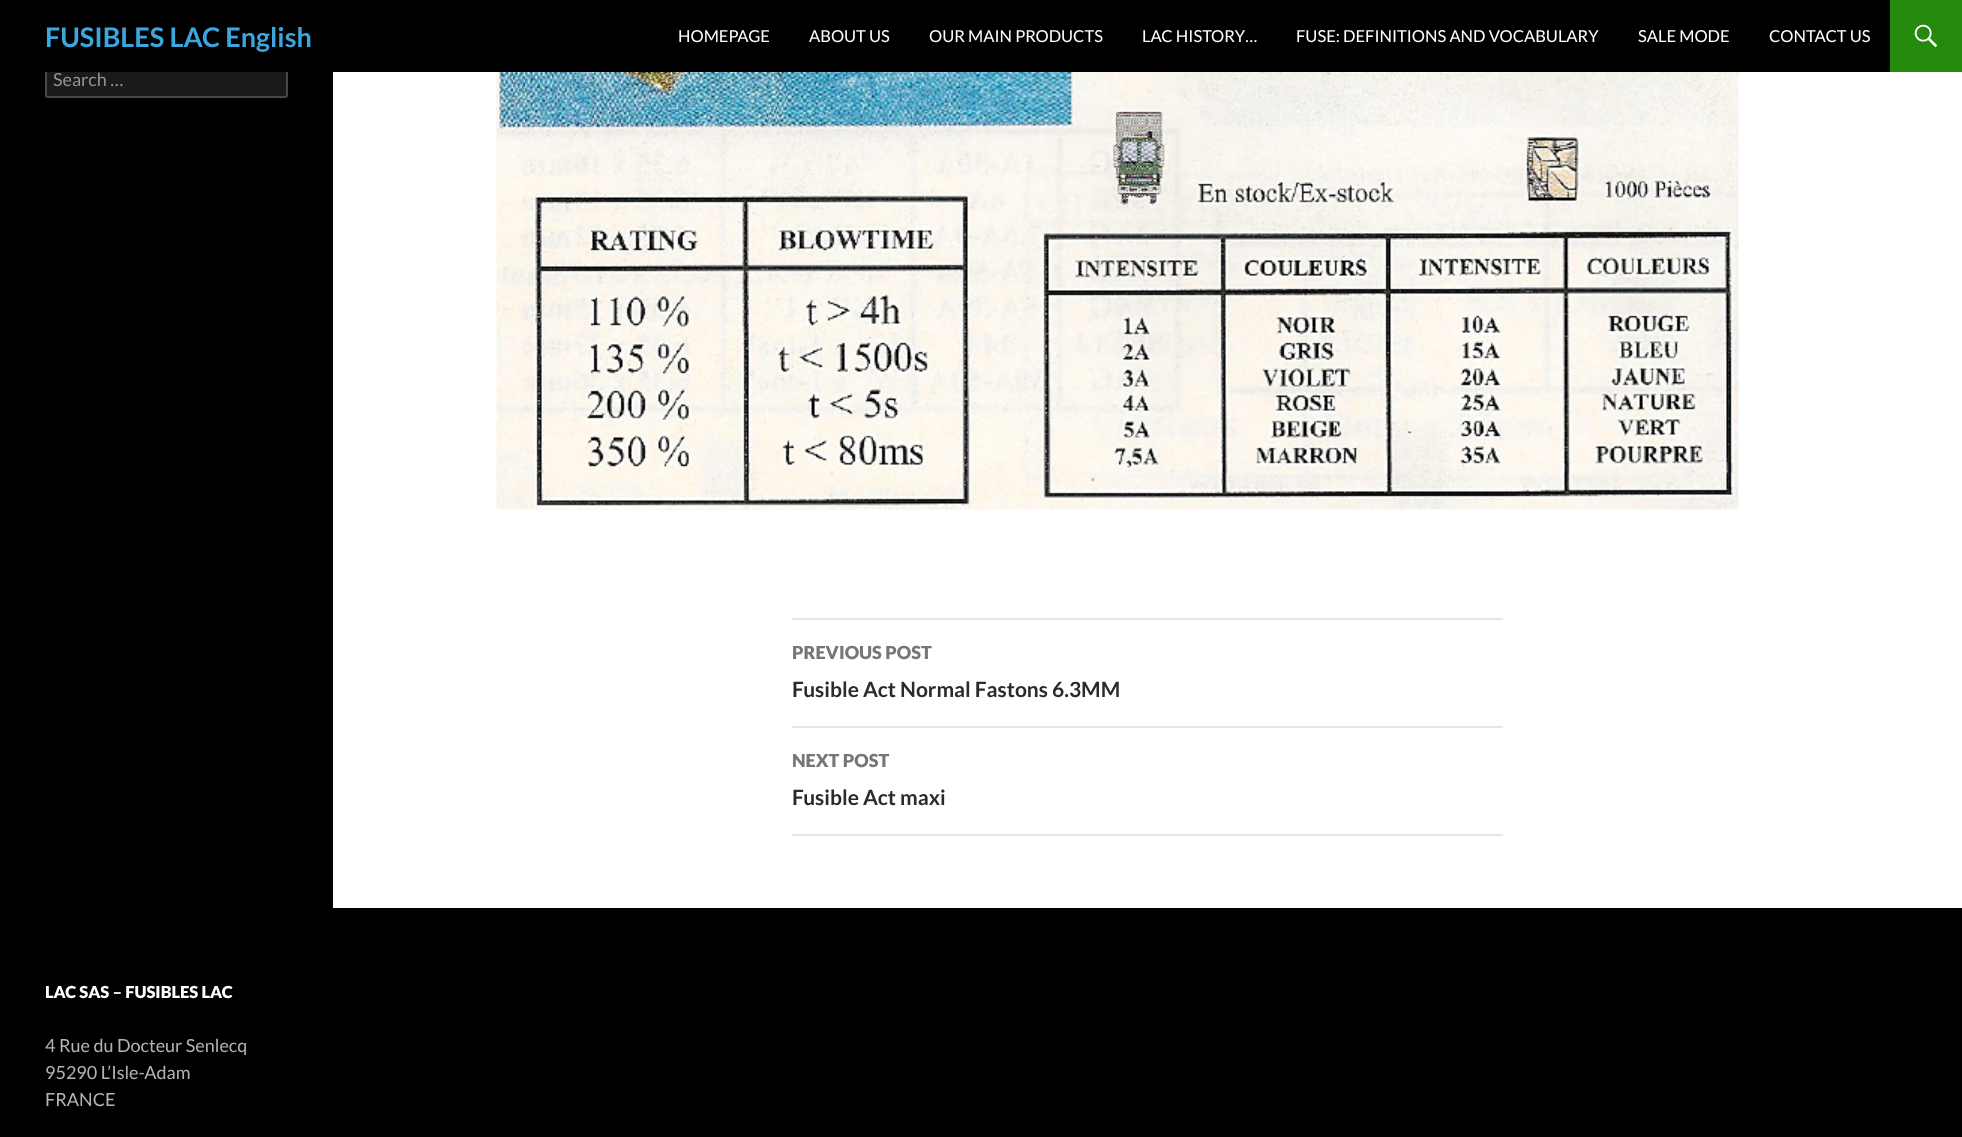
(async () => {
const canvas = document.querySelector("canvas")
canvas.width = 1962
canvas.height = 1137
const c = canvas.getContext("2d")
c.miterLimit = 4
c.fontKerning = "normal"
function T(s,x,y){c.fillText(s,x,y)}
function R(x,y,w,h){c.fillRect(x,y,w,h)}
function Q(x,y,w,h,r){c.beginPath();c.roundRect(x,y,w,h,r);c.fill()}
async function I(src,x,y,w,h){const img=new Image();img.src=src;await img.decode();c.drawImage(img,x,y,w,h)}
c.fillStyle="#fff"
R(0,0,1962,1137)
c.fillStyle="#000"
R(0,72,333,836)
c.fillStyle="#1a1a1a"
Q(45,62,243,36,3)
c.beginPath()
c.roundRect(46,63,241,34,2)
c.strokeStyle="#ffffff33"
c.lineWidth=2
c.stroke()
c.fillStyle="#000"
R(0,0,1890,72)
c.font="bold 27px Lato"
c.fillStyle="#3ba7dd"
T("FUSIBLES LAC English",45,47)
c.font="16.5px Lato"
c.fillStyle="#fff"
T("HOMEPAGE",678,42)
T("ABOUT US",809,42)
T("OUR MAIN PRODUCTS",929,42)
T("LAC HISTORY…",1142,42)
T("FUSE: DEFINITIONS AND VOCABULARY",1296,42)
T("SALE MODE",1638,42)
T("CONTACT US",1769,42)
c.fillStyle="#24890d"
R(1890,0,72,72)
await I("1.png",1914,24,24,24)
c.font="18px Lato"
c.fillStyle="#939393"
T("Search …",53,86)
await I("2.png",496,72,1243,438)
c.fillStyle="#e6e6e6"
R(792,618,711,2)
R(792,726,711,2)
c.font="900 18px Lato"
c.fillStyle="#767676"
T("PREVIOUS POST",792,659)
c.font="bold 21px Lato"
c.fillStyle="#2b2b2b"
T("Fusible Act Normal Fastons 6.3MM",792,697)
c.fillStyle="#e6e6e6"
R(792,834,711,2)
c.font="900 18px Lato"
c.fillStyle="#767676"
T("NEXT POST",792,767)
c.font="bold 21px Lato"
c.fillStyle="#2b2b2b"
T("Fusible Act maxi",792,805)
c.fillStyle="#000"
R(0,908,1962,229)
c.font="900 16.5px Lato"
c.fillStyle="#fff"
T("LAC SAS – FUSIBLES LAC",45,998)
c.font="18px Lato"
c.fillStyle="#b3b3b3"
T("4 Rue du Docteur Senlecq",45,1052)
T("95290 L’Isle-Adam",45,1079)
T("FRANCE",45,1106)
})()
